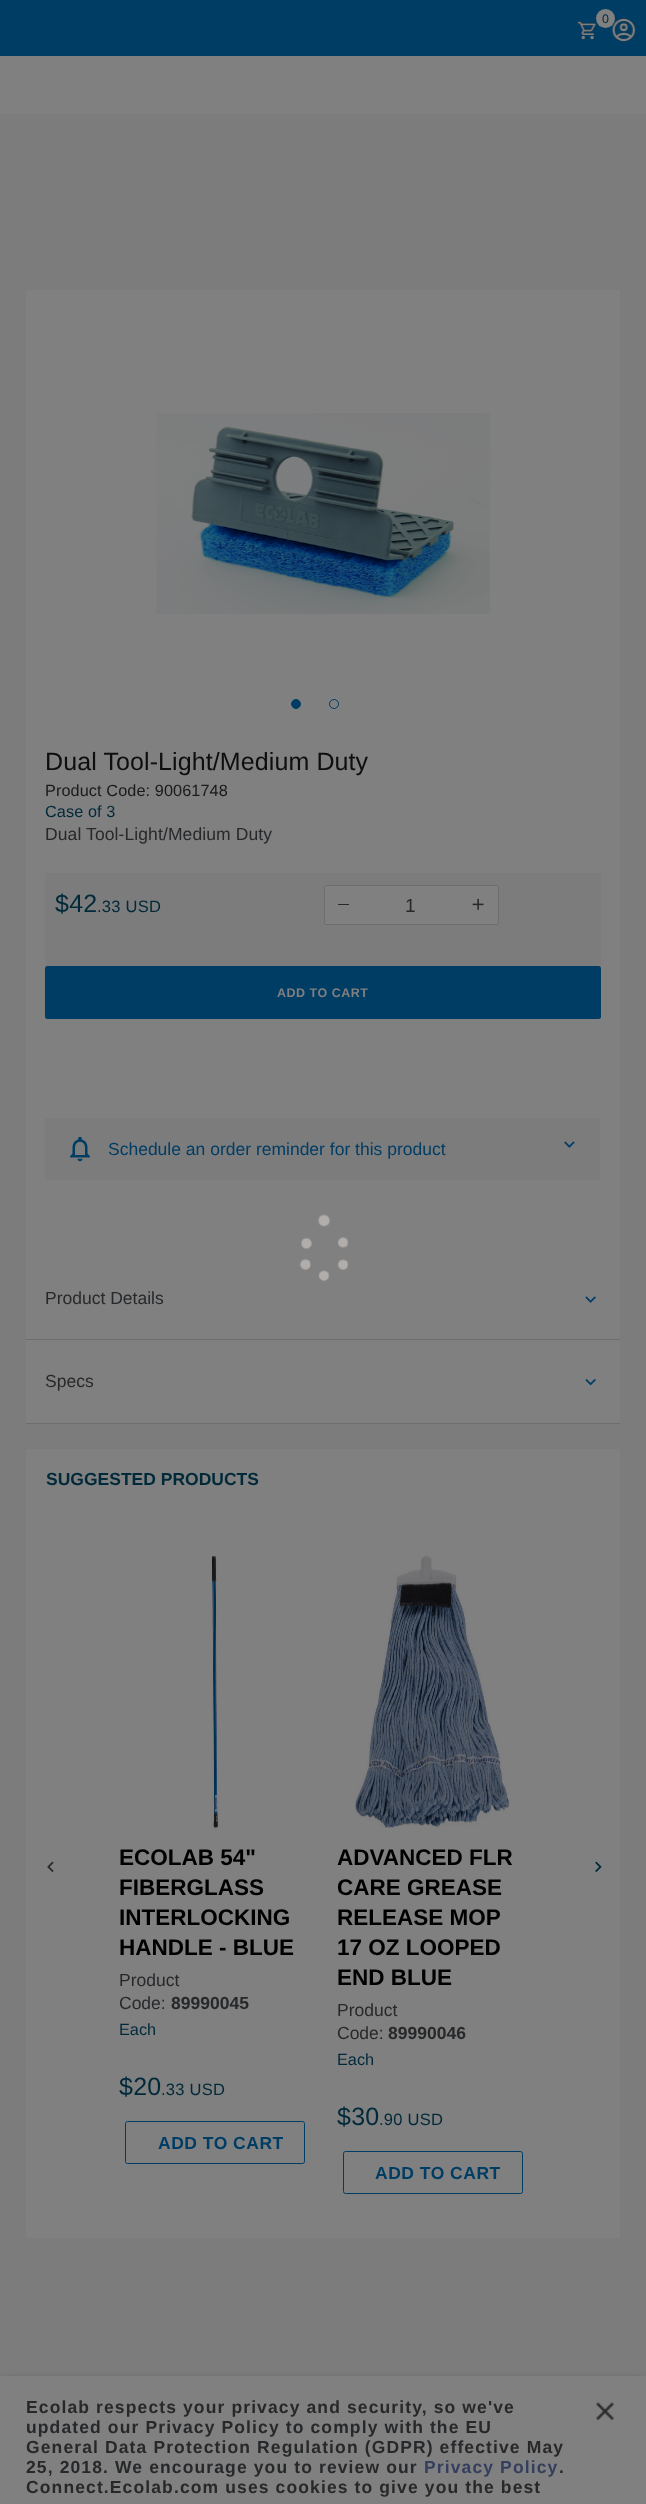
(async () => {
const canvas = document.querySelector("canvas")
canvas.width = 646
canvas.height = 2504
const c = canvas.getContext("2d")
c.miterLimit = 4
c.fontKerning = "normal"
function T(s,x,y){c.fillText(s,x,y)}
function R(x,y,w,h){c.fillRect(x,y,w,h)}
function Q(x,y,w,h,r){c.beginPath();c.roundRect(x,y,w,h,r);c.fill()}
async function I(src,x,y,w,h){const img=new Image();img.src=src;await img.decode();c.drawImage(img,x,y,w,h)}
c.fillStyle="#7c7c7c"
R(0,0,646,2504)
c.fillStyle="#003d65"
R(0,0,646,56)
c.fillStyle="#808080"
c.beginPath()
c.arc(605.5,18.5,9.5,0,7)
c.fill()
c.letterSpacing="1px"
c.font="12.5px Liberation Sans"
c.fillStyle="#002939"
T("0",602,23)
await I("1.png",577,21,19,19)
await I("2.png",611,18,25,24)
c.fillStyle="#808080"
R(0,56,646,58)
R(26,290,594,1133)
await I("3.png",156,413,335,201)
c.fillStyle="#003d65"
c.beginPath()
c.arc(296,704,4.5,0,7)
c.fill()
c.strokeStyle="#003d65"
c.stroke()
c.beginPath()
c.arc(334,704,4.5,0,7)
c.stroke()
c.letterSpacing="0.1px"
c.font="25px Liberation Sans"
c.fillStyle="#0e0e0e"
T("Dual Tool-Light/Medium Duty",45,770)
c.font="16.25px Liberation Sans"
c.fillStyle="#1a1a1a"
T("Product Code: 90061748",45,796)
c.fillStyle="#002939"
T("Case of 3",45,817)
c.font="17.5px Liberation Sans"
c.fillStyle="#27282a"
T("Dual Tool-Light/Medium Duty",45,840)
c.fillStyle="#7c7c7c"
R(45,873,556,96)
c.letterSpacing="0.25px"
c.font="25px Liberation Sans"
c.fillStyle="#002939"
T("$42",55,912)
c.font="16.5px Liberation Sans"
T(".33 USD",97,912)
c.fillStyle="#6d6d6d"
R(361,885,100,1)
R(361,924,100,1)
c.fillStyle="#808080"
c.beginPath()
c.roundRect(324,885,39,40,[2.5,0,0,2.5])
c.fill()
c.fillStyle="#6d6d6d"
R(325,885,38,1)
R(325,924,38,1)
R(324,886,1,38)
c.fillStyle="#27282a"
R(338,904,11,1)
c.fillStyle="#808080"
R(363,886,97,38)
c.letterSpacing="0px"
c.font="19px Liberation Sans"
c.fillStyle="#27282a"
T("1",405,912)
c.fillStyle="#808080"
c.beginPath()
c.roundRect(460,885,39,40,[0,2.5,2.5,0])
c.fill()
c.fillStyle="#6d6d6d"
R(460,885,38,1)
R(498,886,1,38)
R(460,924,38,1)
await I("4.png",472,898,12,12)
c.fillStyle="#003d65"
Q(45,966,556,53,2.5)
c.letterSpacing="0.5px"
c.font="bold 12.5px Liberation Sans"
c.fillStyle="#808080"
T("ADD TO CART",277,997)
c.fillStyle="#7c7c7c"
R(45,1118,555,62)
await I("5.png",70,1136,20,26)
c.letterSpacing="0px"
c.font="17.5px Liberation Sans"
c.fillStyle="#003d65"
T("Schedule an order reminder for this product",108,1155)
await I("6.png",564,1141,11,7)
c.fillStyle="#6d6d6d"
R(26,1339,594,1)
c.fillStyle="#27282a"
T("Product Details",45,1304)
await I("7.png",585,1296,11,7)
c.fillStyle="#6d6d6d"
R(26,1423,594,1)
c.fillStyle="#27282a"
T("Specs",45,1387)
await I("8.png",585,1378,11,8)
c.fillStyle="#808080"
R(26,1449,594,789)
c.font="bold 17.5px Liberation Sans"
c.fillStyle="#002939"
T("SUGGESTED PRODUCTS",46,1485)
await I("9.png",47,1861,7,12)
await I("10.png",211,1556,9,273)
c.font="bold 22.5px Liberation Sans"
c.fillStyle="#000"
T("ECOLAB 54\"",119,1865)
T("FIBERGLASS",119,1895)
T("INTERLOCKING",119,1925)
T("HANDLE - BLUE",119,1955)
c.font="17.5px Liberation Sans"
c.fillStyle="#27282a"
T("Product",119,1986)
T("Code:",119,2009)
c.font="bold 17.5px Liberation Sans"
T("89990045",171,2009)
c.font="16.25px Liberation Sans"
c.fillStyle="#002939"
T("Each",119,2035)
c.letterSpacing="0.25px"
c.font="25px Liberation Sans"
T("$20",119,2095)
c.font="16.5px Liberation Sans"
T(".33 USD",161,2095)
c.beginPath()
c.roundRect(125.5,2121.5,179,42,2)
c.stroke()
c.letterSpacing="0.5px"
c.font="bold 17.5px Liberation Sans"
c.fillStyle="#003d65"
T("ADD TO CART",158,2149)
await I("11.png",354,1556,155,273)
c.letterSpacing="0px"
c.font="bold 22.5px Liberation Sans"
c.fillStyle="#000"
T("ADVANCED FLR",337,1865)
T("CARE GREASE",337,1895)
T("RELEASE MOP",337,1925)
T("17 OZ LOOPED",337,1955)
T("END BLUE",337,1985)
c.font="17.5px Liberation Sans"
c.fillStyle="#27282a"
T("Product",337,2016)
T("Code:",337,2039)
c.font="bold 17.5px Liberation Sans"
T("89990046",388,2039)
c.font="16.25px Liberation Sans"
c.fillStyle="#002939"
T("Each",337,2065)
c.letterSpacing="0.25px"
c.font="25px Liberation Sans"
T("$30",337,2125)
c.font="16.5px Liberation Sans"
T(".90 USD",379,2125)
c.beginPath()
c.roundRect(343.5,2151.5,179,42,2)
c.stroke()
c.letterSpacing="0.5px"
c.font="bold 17.5px Liberation Sans"
c.fillStyle="#003d65"
T("ADD TO CART",375,2179)
await I("12.png",595,1861,7,12)
c.fillStyle="#27282a"
c.filter="blur(6px)"
c.beginPath()
c.rect(0,2384,646,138)
c.fill()
c.filter="none"
c.fillStyle="#808080"
R(0,2376,646,128)
c.letterSpacing="1.12px"
c.fillStyle="#27282a"
T("Ecolab respects your privacy and security, so we've",26,2413)
T("updated our Privacy Policy to comply with the EU",26,2433)
T("General Data Protection Regulation (GDPR) effective May",26,2453)
T("25, 2018. We encourage you to review our",26,2473)
c.fillStyle="#343e5d"
T("Privacy Policy",424,2473)
c.fillStyle="#27282a"
T(".",559,2473)
T("Connect.Ecolab.com uses cookies to give you the best",26,2493)
await I("13.png",596,2402,18,19)
await I("14.png",300,1214,49,68)
})()
